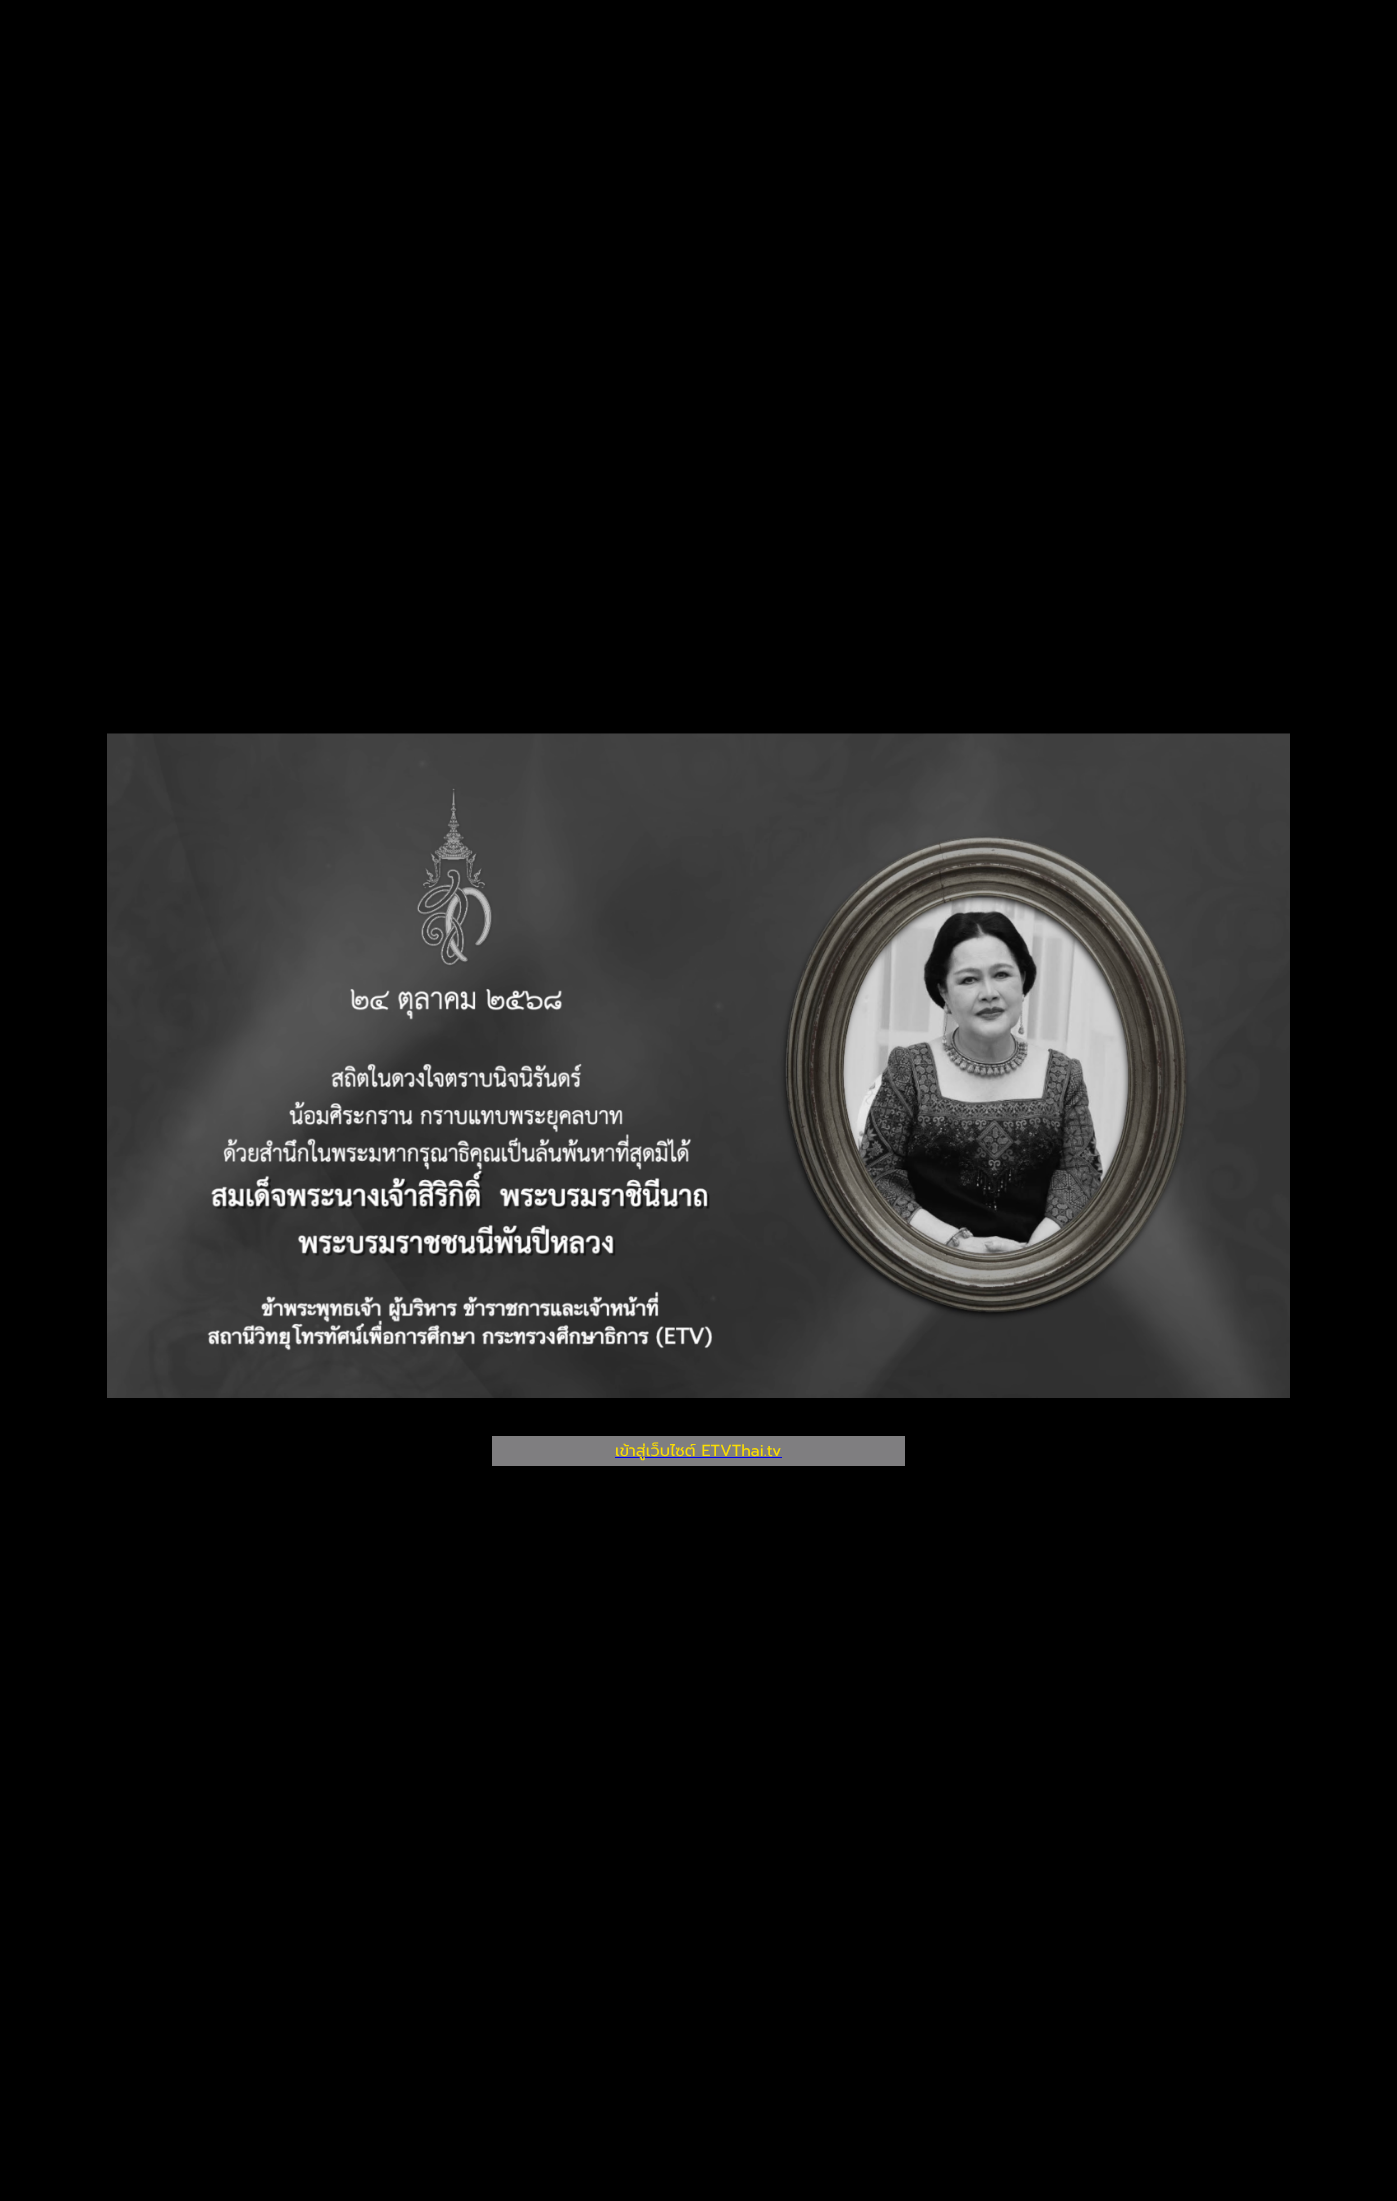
(async () => {
const canvas = document.querySelector("canvas")
canvas.width = 1397
canvas.height = 2201
const c = canvas.getContext("2d")
c.miterLimit = 4
c.fontKerning = "normal"
function T(s,x,y){c.fillText(s,x,y)}
function R(x,y,w,h){c.fillRect(x,y,w,h)}
async function I(src,x,y,w,h){const img=new Image();img.src=src;await img.decode();c.drawImage(img,x,y,w,h)}
c.fillStyle="#000"
R(0,0,1397,2201)
await I("1.png",107,733,1183,665)
c.fillStyle="#7f7e80"
R(492,1436,413,30)
c.fillStyle="#00e"
R(615,1457,167,1)
c.font="16px Prompt"
c.fillStyle="#fbdd03"
T("เข้าสู่เว็บไซต์ ETVThai.tv",615,1456)
})()
